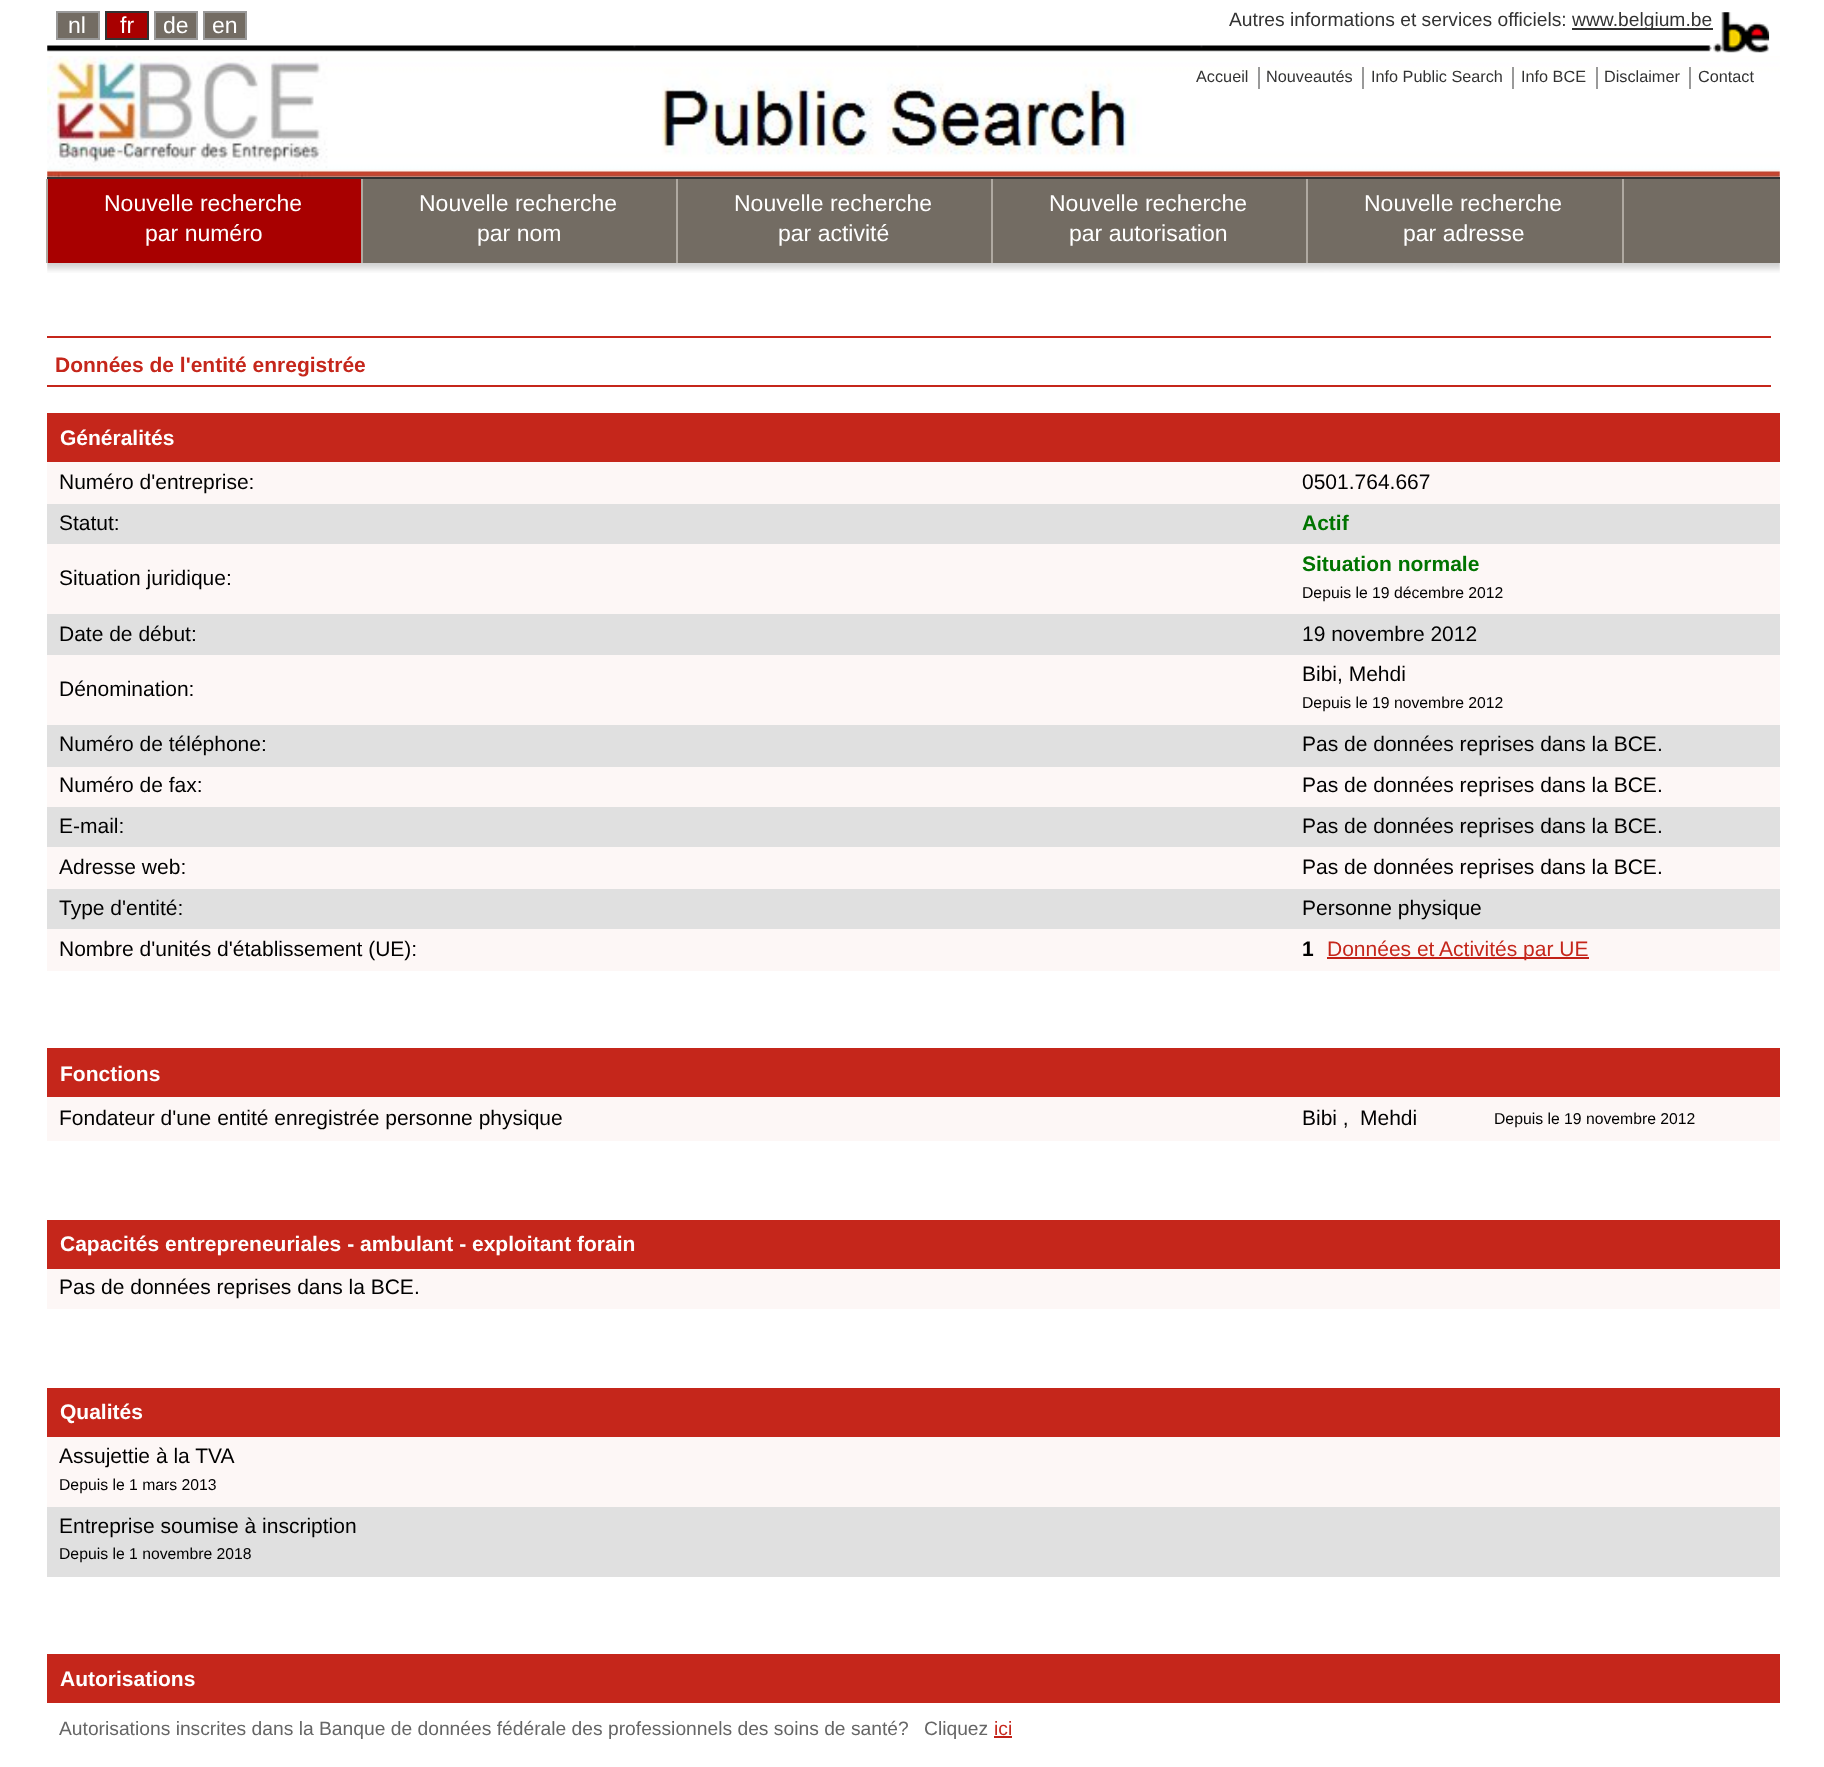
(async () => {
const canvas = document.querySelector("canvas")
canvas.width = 1824
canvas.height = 1767
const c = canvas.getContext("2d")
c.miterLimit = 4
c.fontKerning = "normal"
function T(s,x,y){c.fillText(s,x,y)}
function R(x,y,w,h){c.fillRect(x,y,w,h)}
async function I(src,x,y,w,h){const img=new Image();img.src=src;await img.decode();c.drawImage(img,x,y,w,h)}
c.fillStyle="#fff"
R(0,0,1824,1767)
await I("1.png",47,56,1733,121)
await I("2.png",47,45,1665,7)
c.fillStyle="#736c63"
c.beginPath()
c.rect(57,12,42,27)
c.fill()
c.strokeStyle="#999"
c.lineWidth=2
c.stroke()
c.font="23px Liberation Sans"
c.fillStyle="#fff"
T("nl",68,33)
c.fillStyle="#a80000"
c.beginPath()
c.rect(106,12,42,27)
c.fill()
c.strokeStyle="#333"
c.stroke()
c.fillStyle="#fff"
T("fr",120,33)
c.fillStyle="#736c63"
c.beginPath()
c.rect(155,12,42,27)
c.fill()
c.strokeStyle="#999"
c.stroke()
c.fillStyle="#fff"
T("de",163,33)
c.fillStyle="#736c63"
c.beginPath()
c.rect(204,12,42,27)
c.fill()
c.stroke()
c.fillStyle="#fff"
T("en",212,33)
c.font="19.25px Liberation Sans"
c.fillStyle="#333"
T("Autres informations et services officiels:",1229,26)
R(1572,28,141,2)
T("www.belgium.be",1572,26)
await I("3.png",1713,12,57,41)
c.font="16.25px Liberation Sans"
T("Accueil",1196,82)
c.fillStyle="#999"
R(1258,67,2,22)
c.fillStyle="#333"
T("Nouveautés",1266,82)
c.fillStyle="#999"
R(1362,67,2,22)
c.fillStyle="#333"
T("Info Public Search",1371,82)
c.fillStyle="#999"
R(1512,67,2,22)
c.fillStyle="#333"
T("Info BCE",1521,82)
c.fillStyle="#999"
R(1596,67,2,22)
c.fillStyle="#333"
T("Disclaimer",1604,82)
c.fillStyle="#999"
R(1689,67,2,22)
c.fillStyle="#333"
T("Contact",1698,82)
c.fillStyle="#736c63"
R(1624,179,156,84)
c.fillStyle="#333"
R(47,177,1733,2)
c.fillStyle="#a80000"
R(48,179,313,84)
c.fillStyle="#afa9a1"
R(46,179,2,84)
c.font="23px Liberation Sans"
c.fillStyle="#fff"
T("Nouvelle recherche",104,211)
T("par numéro",145,241)
c.fillStyle="#736c63"
R(363,179,313,84)
c.fillStyle="#afa9a1"
R(361,179,2,84)
c.fillStyle="#fff"
T("Nouvelle recherche",419,211)
T("par nom",477,241)
c.fillStyle="#736c63"
R(678,179,313,84)
c.fillStyle="#afa9a1"
R(676,179,2,84)
c.fillStyle="#fff"
T("Nouvelle recherche",734,211)
T("par activité",778,241)
c.fillStyle="#736c63"
R(993,179,313,84)
c.fillStyle="#afa9a1"
R(991,179,2,84)
c.fillStyle="#fff"
T("Nouvelle recherche",1049,211)
T("par autorisation",1069,241)
c.fillStyle="#736c63"
R(1308,179,314,84)
c.fillStyle="#afa9a1"
R(1622,179,2,84)
R(1306,179,2,84)
c.fillStyle="#fff"
T("Nouvelle recherche",1364,211)
T("par adresse",1403,241)
await I("4.png",47,263,1733,10)
c.fillStyle="#c5261b"
R(47,336,1724,2)
R(47,385,1724,2)
c.font="bold 21px Liberation Sans"
T("Données de l'entité enregistrée",55,372)
R(47,413,1733,49)
c.fillStyle="#fff"
T("Généralités",60,445)
c.fillStyle="#fdf7f6"
R(47,462,1733,42)
c.font="21px Liberation Sans"
c.fillStyle="#000"
T("Numéro d'entreprise:",59,489)
T("0501.764.667",1302,489)
c.fillStyle="#e0e0e0"
R(47,504,1733,40)
c.fillStyle="#000"
T("Statut:",59,530)
c.font="bold 21px Liberation Sans"
c.fillStyle="#007400"
T("Actif",1302,530)
c.fillStyle="#fdf7f6"
R(47,544,1733,70)
c.font="21px Liberation Sans"
c.fillStyle="#000"
T("Situation juridique:",59,585)
c.font="bold 21px Liberation Sans"
c.fillStyle="#007400"
T("Situation normale",1302,571)
c.font="15.75px Liberation Sans"
c.fillStyle="#000"
T("Depuis le 19 décembre 2012",1302,598)
c.fillStyle="#e0e0e0"
R(47,614,1733,41)
c.font="21px Liberation Sans"
c.fillStyle="#000"
T("Date de début:",59,641)
T("19 novembre 2012",1302,641)
c.fillStyle="#fdf7f6"
R(47,655,1733,70)
c.fillStyle="#000"
T("Dénomination:",59,696)
T("Bibi, Mehdi",1302,681)
c.font="15.75px Liberation Sans"
T("Depuis le 19 novembre 2012",1302,708)
c.fillStyle="#e0e0e0"
R(47,725,1733,42)
c.font="21px Liberation Sans"
c.fillStyle="#000"
T("Numéro de téléphone:",59,751)
T("Pas de données reprises dans la BCE.",1302,751)
c.fillStyle="#fdf7f6"
R(47,767,1733,40)
c.fillStyle="#000"
T("Numéro de fax:",59,792)
T("Pas de données reprises dans la BCE.",1302,792)
c.fillStyle="#e0e0e0"
R(47,807,1733,40)
c.fillStyle="#000"
T("E-mail:",59,833)
T("Pas de données reprises dans la BCE.",1302,833)
c.fillStyle="#fdf7f6"
R(47,847,1733,42)
c.fillStyle="#000"
T("Adresse web:",59,874)
T("Pas de données reprises dans la BCE.",1302,874)
c.fillStyle="#e0e0e0"
R(47,889,1733,40)
c.fillStyle="#000"
T("Type d'entité:",59,915)
T("Personne physique",1302,915)
c.fillStyle="#fdf7f6"
R(47,929,1733,42)
c.fillStyle="#000"
T("Nombre d'unités d'établissement (UE):",59,956)
c.font="bold 21px Liberation Sans"
T("1",1302,956)
c.fillStyle="#c22117"
R(1327,957,262,2)
c.font="21px Liberation Sans"
c.fillStyle="#c5261b"
T("Données et Activités par UE",1327,956)
R(47,1048,1733,49)
c.font="bold 21px Liberation Sans"
c.fillStyle="#fff"
T("Fonctions",60,1081)
c.fillStyle="#fdf7f6"
R(47,1097,1733,44)
c.font="21px Liberation Sans"
c.fillStyle="#000"
T("Fondateur d'une entité enregistrée personne physique",59,1125)
T("Bibi ,",1302,1125)
T("Mehdi",1360,1125)
c.font="15.75px Liberation Sans"
T("Depuis le 19 novembre 2012",1494,1124)
c.fillStyle="#c5261b"
R(47,1220,1733,49)
c.font="bold 21px Liberation Sans"
c.fillStyle="#fff"
T("Capacités entrepreneuriales - ambulant - exploitant forain",60,1251)
c.fillStyle="#fdf7f6"
R(47,1269,1733,40)
c.font="21px Liberation Sans"
c.fillStyle="#000"
T("Pas de données reprises dans la BCE.",59,1294)
c.fillStyle="#c5261b"
R(47,1388,1733,49)
c.font="bold 21px Liberation Sans"
c.fillStyle="#fff"
T("Qualités",60,1419)
c.fillStyle="#fdf7f6"
R(47,1437,1733,70)
c.font="21px Liberation Sans"
c.fillStyle="#000"
T("Assujettie à la TVA",59,1463)
c.font="15.75px Liberation Sans"
T("Depuis le 1 mars 2013",59,1490)
c.fillStyle="#e0e0e0"
R(47,1507,1733,70)
c.font="21px Liberation Sans"
c.fillStyle="#000"
T("Entreprise soumise à inscription",59,1533)
c.font="15.75px Liberation Sans"
T("Depuis le 1 novembre 2018",59,1559)
c.fillStyle="#c5261b"
R(47,1654,1733,49)
c.font="bold 21px Liberation Sans"
c.fillStyle="#fff"
T("Autorisations",60,1686)
c.font="19.25px Liberation Sans"
c.fillStyle="#666"
T("Autorisations inscrites dans la Banque de données fédérale des professionnels des soins de santé?",59,1735)
T("Cliquez",924,1735)
c.fillStyle="#c5261b"
T("ici",994,1735)
c.fillStyle="#c22117"
R(994,1736,18,2)
})()
